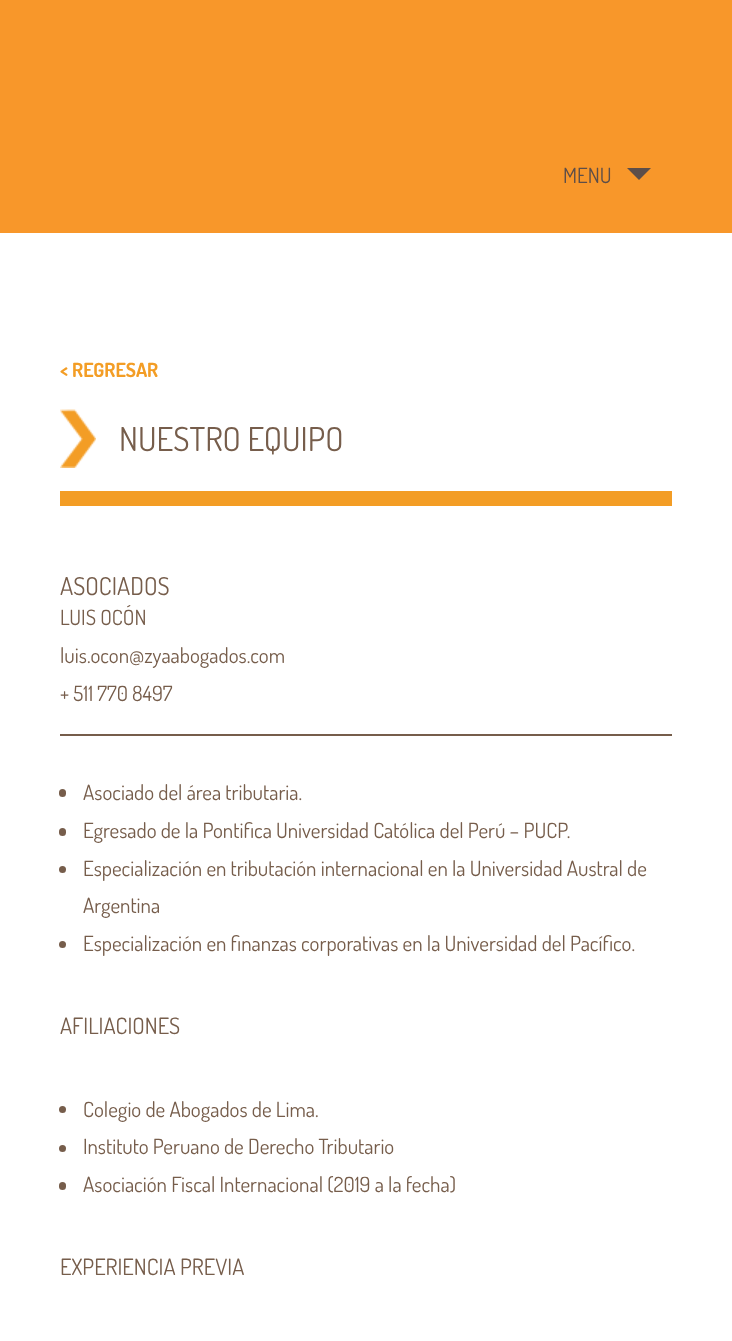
(async () => {
const canvas = document.querySelector("canvas")
canvas.width = 732
canvas.height = 1341
const c = canvas.getContext("2d")
c.miterLimit = 4
c.fontKerning = "normal"
function T(s,x,y){c.fillText(s,x,y)}
function R(x,y,w,h){c.fillRect(x,y,w,h)}
function Q(x,y,w,h,r){c.beginPath();c.roundRect(x,y,w,h,r);c.fill()}
async function I(src,x,y,w,h){const img=new Image();img.src=src;await img.decode();c.drawImage(img,x,y,w,h)}
let path
c.fillStyle="#fff"
R(0,0,732,1341)
c.fillStyle="#f8972a"
R(0,0,732,233)
c.font="21px Dosis"
c.fillStyle="#5d4e49"
T("MENU",563,183)
path = new Path2D("M627 168h24l-12 12z")
c.fill(path)
c.font="bold 19.5px Dosis"
c.fillStyle="#f39d25"
T("< REGRESAR",60,377)
await I("1.png",60,409,36,59)
c.font="33px Dosis"
c.fillStyle="#765d4b"
T("NUESTRO EQUIPO",119,451)
c.fillStyle="#f39d25"
R(60,491,612,15)
c.font="24.5px Dosis"
c.fillStyle="#765d4b"
T("ASOCIADOS",60,595)
c.font="21px Dosis"
T("LUIS OCÓN",60,625)
T("luis.ocon@zyaabogados.com",60,663)
T("+ 511 770 8497",60,701)
R(60,734,612,2)
Q(59,789,7,8,3.5)
T("Asociado del área tributaria.",83,800)
Q(59,828,7,8,3.5)
T("Egresado de la Pontifica Universidad Católica del Perú – PUCP.",83,838)
c.beginPath()
c.arc(62.5,869.5,3.5,0,7)
c.fill()
T("Especialización en tributación internacional en la Universidad Austral de",83,876)
T("Argentina",83,913)
c.beginPath()
c.arc(62.5,944.5,3.5,0,7)
c.fill()
T("Especialización en finanzas corporativas en la Universidad del Pacífico.",83,951)
c.font="22.5px Dosis"
T("AFILIACIONES",60,1034)
c.beginPath()
c.arc(62.5,1109.5,3.5,0,7)
c.fill()
c.font="21px Dosis"
T("Colegio de Abogados de Lima.",83,1117)
c.beginPath()
c.arc(62.5,1148.5,3.5,0,7)
c.fill()
T("Instituto Peruano de Derecho Tributario",83,1154)
Q(59,1182,7,8,3.5)
T("Asociación Fiscal Internacional (2019 a la fecha)",83,1192)
c.font="22.5px Dosis"
T("EXPERIENCIA PREVIA",60,1275)
})()
